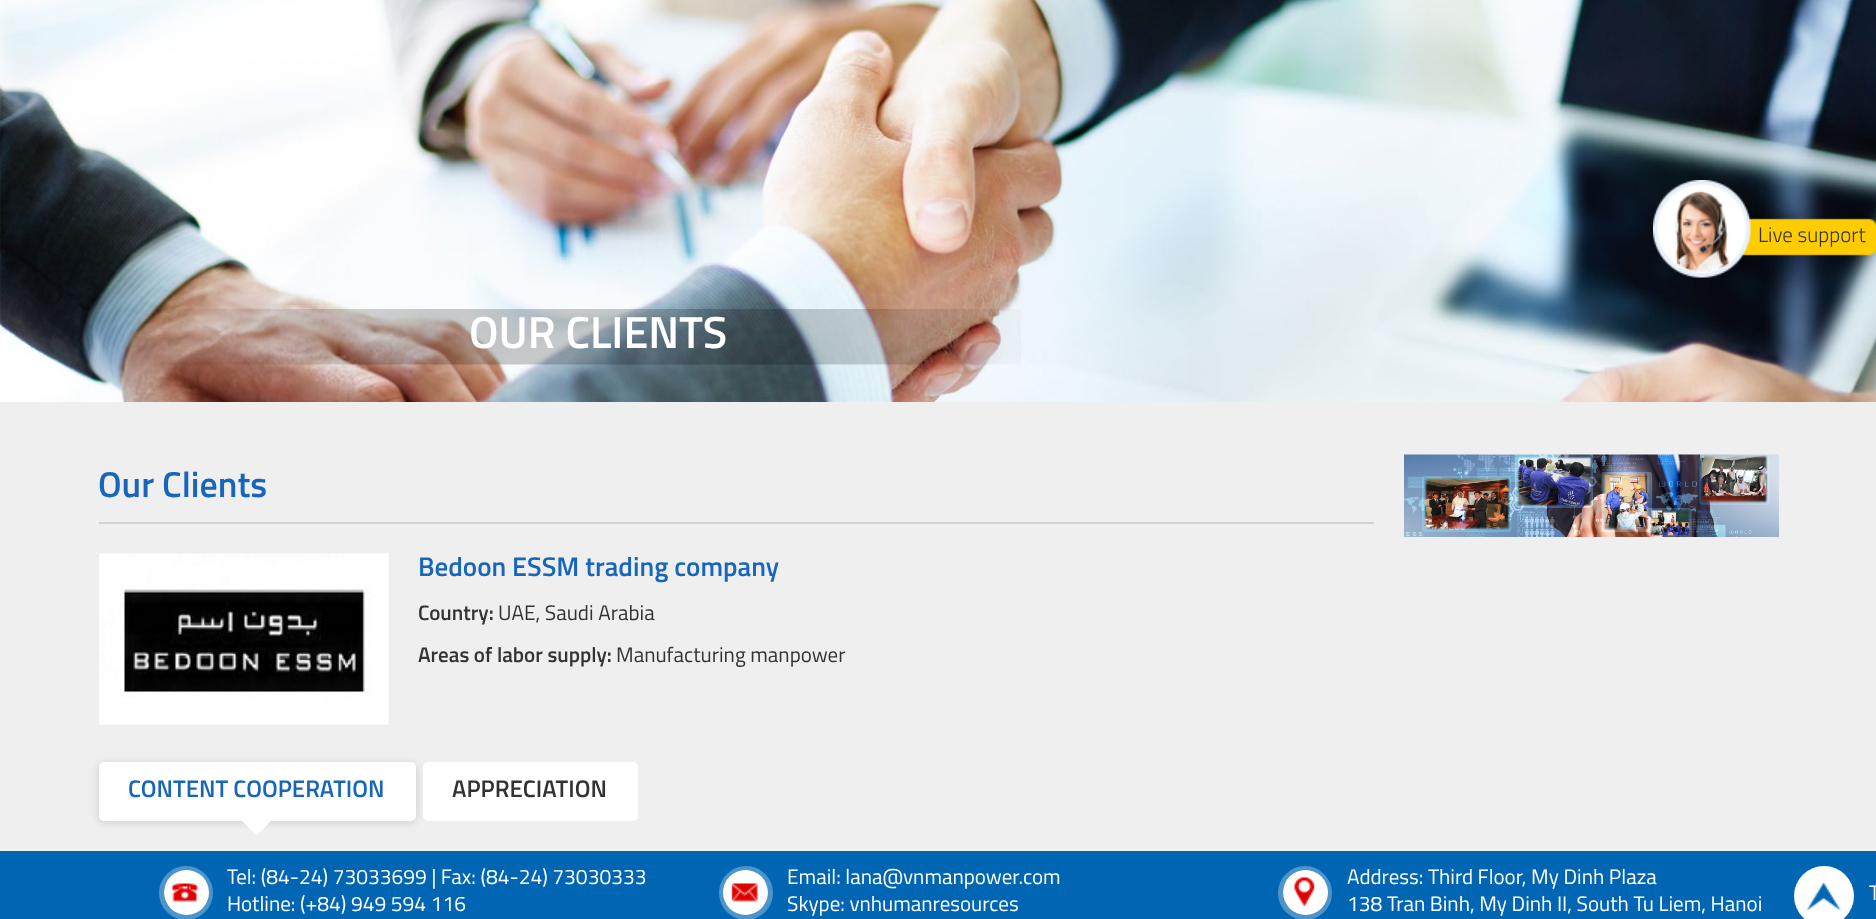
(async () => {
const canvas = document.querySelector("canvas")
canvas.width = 1876
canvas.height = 919
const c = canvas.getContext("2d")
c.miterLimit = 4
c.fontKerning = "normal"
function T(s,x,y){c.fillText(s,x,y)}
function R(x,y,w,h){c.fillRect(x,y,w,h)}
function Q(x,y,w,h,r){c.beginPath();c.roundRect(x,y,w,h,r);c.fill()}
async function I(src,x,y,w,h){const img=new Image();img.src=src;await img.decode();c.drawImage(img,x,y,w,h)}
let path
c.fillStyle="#efefef"
R(0,0,1876,919)
await I("2.png",0,0,1876,402)
await I("1.png",1653,180,223,98)
c.font="300 21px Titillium"
c.fillStyle="#333"
T("Live support",1758,242)
await I("3.png",168,309,853,56)
c.font="600 45px Titillium"
c.fillStyle="#fff"
T("OUR CLIENTS",469,348)
c.fillStyle="#d3d3d3"
R(99,522,1275,2)
c.font="600 36px Titillium"
c.fillStyle="#1766ba"
T("Our Clients",98,497)
await I("4.png",99,553,290,172)
c.font="600 27px Titillium"
T("Bedoon ESSM trading company",418,576)
c.font="600 21px Titillium"
c.fillStyle="#333"
T("Country:",418,620)
c.font="21px Titillium"
T("UAE, Saudi Arabia",498,620)
c.font="600 21px Titillium"
T("Areas of labor supply:",418,662)
c.font="21px Titillium"
T("Manufacturing manpower",616,662)
c.fillStyle="#00000026"
c.filter="blur(4px)"
c.beginPath()
c.roundRect(99,764,317,58,5)
c.fill()
c.filter="none"
c.fillStyle="#fff"
Q(99,762,317,59,5)
c.font="600 24px Titillium"
c.fillStyle="#1766ba"
T("CONTENT COOPERATION",128,797)
c.fillStyle="#fff"
path = new Path2D("M241.5 820.5h30l-15 15z")
c.fill(path)
Q(423,762,215,59,5)
c.fillStyle="#333"
T("APPRECIATION",452,797)
await I("5.png",1404,454,375,83)
c.fillStyle="#0066b3"
R(0,851,1876,68)
c.fillStyle="#fff"
c.beginPath()
c.arc(186.5,892.5,22.5,0,7)
c.fill()
c.beginPath()
c.arc(186,893,24.5,0,7)
c.strokeStyle="#ffffff4d"
c.lineWidth=5
c.stroke()
await I("6.png",172,883,27,19)
c.font="21px Titillium"
T("Tel: (84-24) 73033699 | Fax: (84-24) 73030333",227,884)
T("Hotline: (+84) 949 594 116",227,911)
c.beginPath()
c.arc(745.5,892.5,22.5,0,7)
c.fill()
c.beginPath()
c.arc(746,893,24.5,0,7)
c.stroke()
await I("7.png",731,883,27,19)
T("Email: lana@vnmanpower.com",787,884)
T("Skype: vnhumanresources",787,911)
c.beginPath()
c.arc(1305.5,892.5,22.5,0,7)
c.fill()
c.beginPath()
c.arc(1305,893,24.5,0,7)
c.stroke()
await I("8.png",1294,876,22,31)
T("Address: Third Floor, My Dinh Plaza",1347,884)
T("138 Tran Binh, My Dinh II, South Tu Liem, Hanoi",1347,911)
c.beginPath()
c.arc(1824,896,30,0,7)
c.fill()
await I("9.png",1806,882,35,29)
T("T",1869,900)
})()
